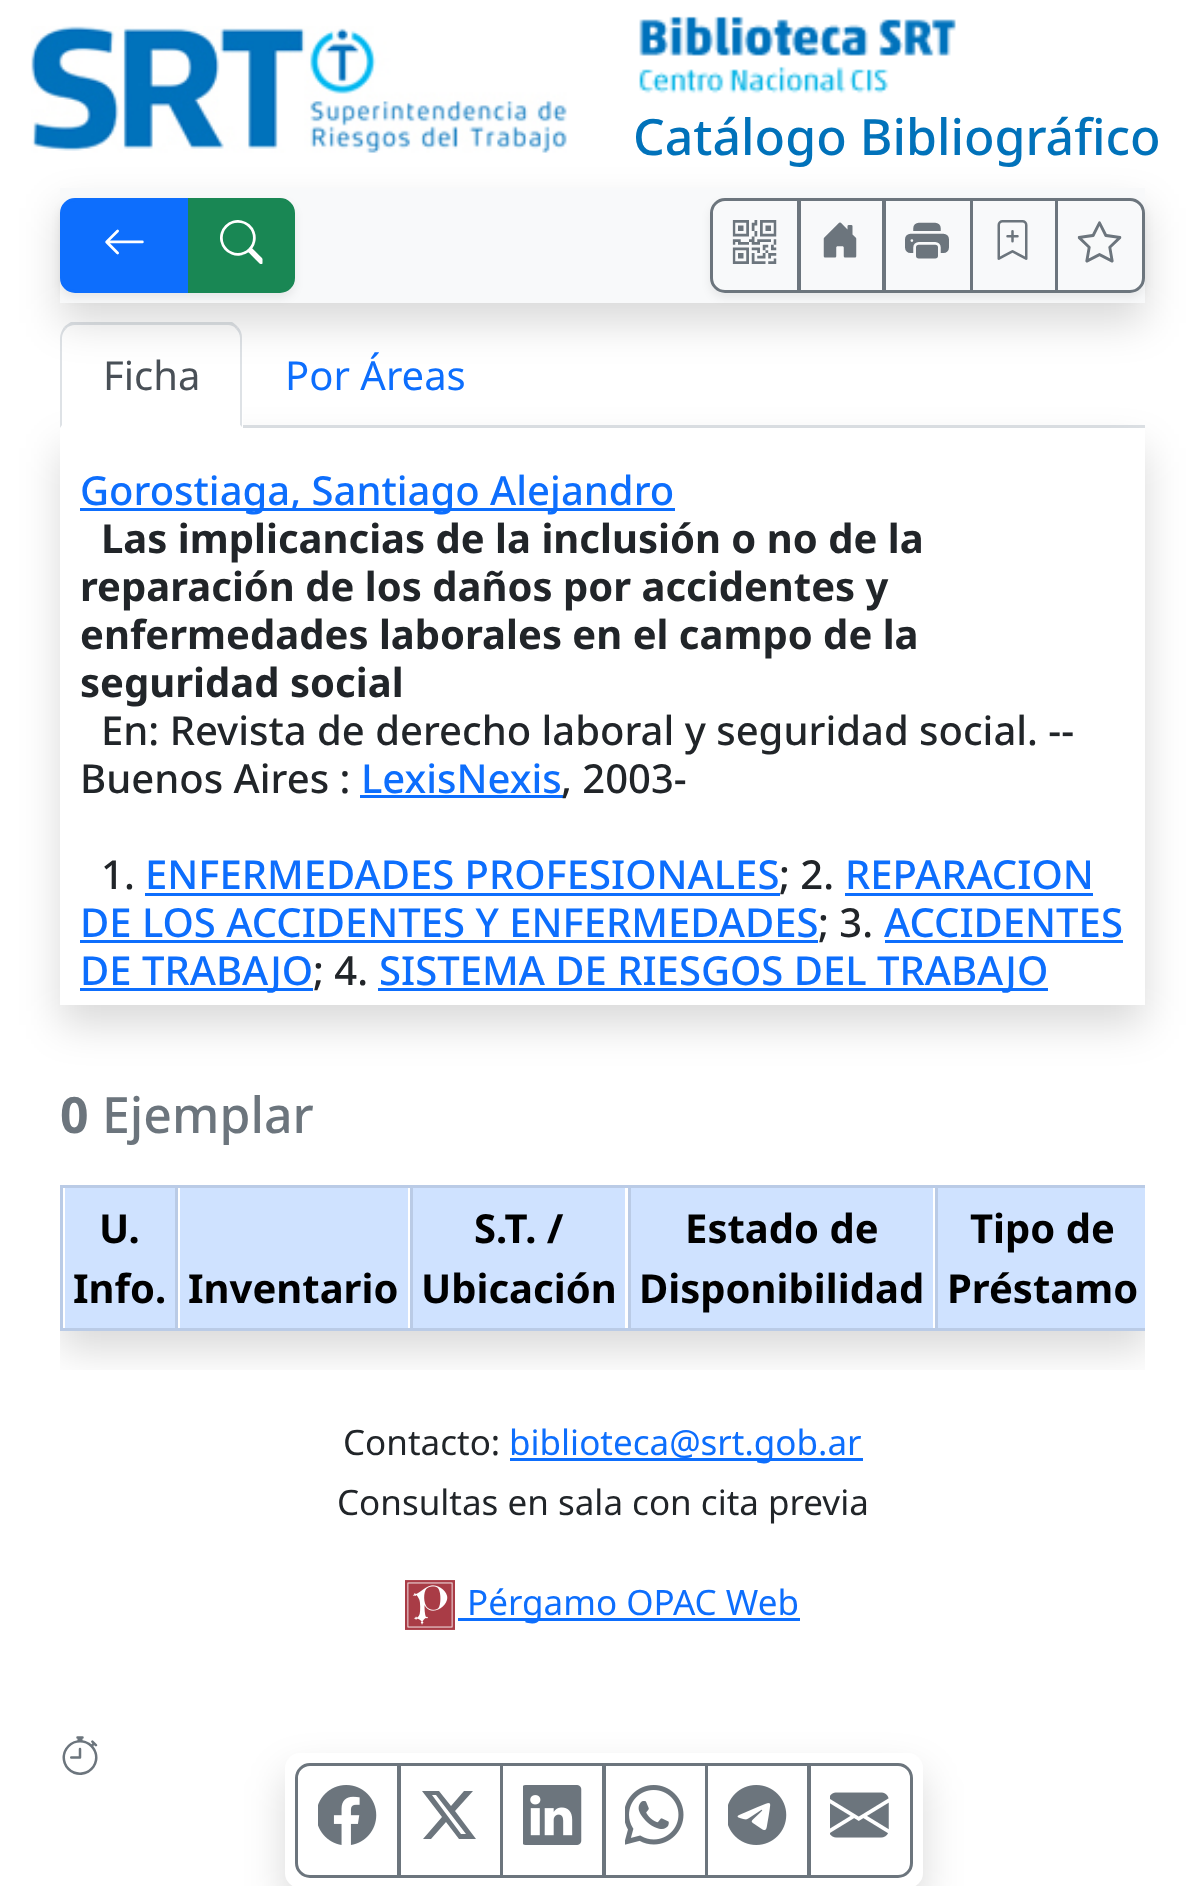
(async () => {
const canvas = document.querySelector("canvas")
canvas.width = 1203
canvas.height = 1886
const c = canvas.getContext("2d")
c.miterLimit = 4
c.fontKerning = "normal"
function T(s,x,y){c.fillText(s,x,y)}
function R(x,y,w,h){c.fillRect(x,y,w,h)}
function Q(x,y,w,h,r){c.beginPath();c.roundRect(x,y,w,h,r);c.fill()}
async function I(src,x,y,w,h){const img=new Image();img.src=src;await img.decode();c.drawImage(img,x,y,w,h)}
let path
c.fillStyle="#fff"
R(0,0,1203,1886)
await I("1.png",31,26,536,127)
await I("2.png",639,16,317,78)
c.font="500 50px Noto Sans"
c.fillStyle="#0172ba"
T("Catálogo Bibliográfico",633,155)
c.fillStyle="#dee2e6"
R(243,425,902,3)
c.save()
path = new Path2D("M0 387h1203v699h-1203zm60 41h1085v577h-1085z")
c.clip(path,"evenodd")
c.fillStyle="#00000026"
c.filter="blur(20px)"
c.beginPath()
c.rect(60,448,1085,577)
c.fill()
c.filter="none"
c.restore()
c.fillStyle="#fff"
c.beginPath()
c.roundRect(60,323,183,105,[15,15,0,0])
c.fill()
c.fillStyle="#dee2e6"
path = new Path2D("M75 325c-3 0-7 1-9 4l-2-2c2-2 5-4 7-5h161c2 1 4 3 6 5l-2 2c-2-3-5-4-8-4z")
c.fill(path)
path = new Path2D("M238 327c3 3 4 7 4 11v89l-2-2v-87c0-4-2-7-4-9z")
c.fill(path)
c.fillStyle="#fff"
path = new Path2D("M242 428h-182l2-3h178z")
c.fill(path)
c.fillStyle="#dee2e6"
path = new Path2D("M60 428l2-3v-87c0-4 2-7 4-9l-2-2c-2 3-4 7-4 11z")
c.fill(path)
c.fillStyle="#00000026"
c.filter="blur(20px)"
c.beginPath()
c.rect(60,208,1085,115)
c.fill()
c.filter="none"
c.fillStyle="#f8f9fa"
R(60,188,1085,115)
c.fillStyle="#00000012"
c.filter="blur(5px)"
c.beginPath()
c.roundRect(60,203,235,95,15)
c.fill()
c.filter="none"
c.fillStyle="#0d6efd"
c.beginPath()
c.roundRect(61.5,199.5,127,92,[13.5,0,0,13.5])
c.fill()
c.strokeStyle="#0d6efd"
c.lineWidth=3
c.stroke()
await I("3.png",105,229,39,26)
c.fillStyle="#198754"
c.beginPath()
c.roundRect(189.5,199.5,104,92,[0,13.5,13.5,0])
c.fill()
c.strokeStyle="#198754"
c.stroke()
await I("4.png",220,220,43,44)
c.save()
path = new Path2D("M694 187h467v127h-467zm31 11h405c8.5 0 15 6.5 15 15v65c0 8.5-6.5 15-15 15h-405c-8.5 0-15-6.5-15-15v-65c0-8.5 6.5-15 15-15z")
c.clip(path,"evenodd")
c.fillStyle="#00000012"
c.filter="blur(5px)"
c.beginPath()
c.roundRect(710,203,435,95,15)
c.fill()
c.filter="none"
c.restore()
c.beginPath()
c.roundRect(711.5,199.5,87,92,[13.5,0,0,13.5])
c.strokeStyle="#6c757d"
c.stroke()
await I("5.png",732,220,45,44)
c.strokeRect(799.5,199.5,84,92)
await I("6.png",823,222,34,36)
c.strokeRect(884.5,199.5,87,92)
await I("7.png",905,222,44,37)
c.strokeRect(971.5,199.5,85,92)
await I("8.png",997,220,31,40)
c.beginPath()
c.roundRect(1056.5,199.5,87,92,[0,13.5,13.5,0])
c.stroke()
await I("9.png",1077,221,45,42)
c.font="40px Noto Sans"
c.fillStyle="#495057"
T("Ficha",103,390)
c.fillStyle="#0d6efd"
T("Por Áreas",285,390)
R(80,508,595,3)
c.font="500 40px Noto Sans"
T("Gorostiaga, Santiago Alejandro",80,505)
c.font="bold 40px Noto Sans"
c.fillStyle="#212529"
T("Las implicancias de la inclusión o no de la",101,553)
T("reparación de los daños por accidentes y",80,601)
T("enfermedades laborales en el campo de la",80,649)
T("seguridad social",80,697)
c.font="500 40px Noto Sans"
T("En: Revista de derecho laboral y seguridad social. --",101,745)
T("Buenos Aires :",80,793)
c.fillStyle="#0d6efd"
T("LexisNexis",361,793)
R(360,795,203,3)
c.fillStyle="#212529"
T(", 2003-",561,793)
T("1.",101,889)
c.fillStyle="#0d6efd"
T("ENFERMEDADES PROFESIONALES",145,889)
R(145,893,635,3)
c.fillStyle="#212529"
T("; 2.",779,889)
c.fillStyle="#0d6efd"
T("REPARACION",845,889)
R(845,893,248,3)
T("DE LOS ACCIDENTES Y ENFERMEDADES",80,937)
R(80,940,738,3)
c.fillStyle="#212529"
T("; 3.",818,937)
c.fillStyle="#0d6efd"
T("ACCIDENTES",884,937)
R(885,940,238,3)
R(80,988,233,3)
T("DE TRABAJO",80,985)
c.fillStyle="#212529"
T("; 4.",313,985)
c.fillStyle="#0d6efd"
R(378,988,670,3)
T("SISTEMA DE RIESGOS DEL TRABAJO",379,985)
c.save()
c.beginPath()
c.rect(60,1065,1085,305)
c.clip()
c.beginPath()
c.rect(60,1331,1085,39)
c.clip()
c.fillStyle="#00000026"
c.filter="blur(20px)"
c.beginPath()
c.rect(60,1085,1090,265)
c.fill()
c.filter="none"
c.restore()
c.font="bold 50px Noto Sans"
c.fillStyle="#6c757d"
T("0",60,1133)
c.font="500 50px Noto Sans"
T("Ejemplar",102,1133)
c.fillStyle="#bacbe6"
R(60,1185,1085,3)
R(60,1328,1085,3)
c.fillStyle="#cfe2ff"
R(65,1188,110,140)
c.fillStyle="#bacbe6"
R(60,1185,3,145)
c.font="bold 40px Noto Sans"
c.fillStyle="#000"
T("U.",99,1243)
T("Info.",73,1303)
c.fillStyle="#cfe2ff"
R(180,1188,228,140)
c.fillStyle="#bacbe6"
R(175,1185,3,145)
c.fillStyle="#000"
T("Inventario",188,1303)
c.fillStyle="#cfe2ff"
R(413,1188,212,140)
c.fillStyle="#bacbe6"
R(410,1185,3,145)
c.fillStyle="#000"
T("S.T. /",474,1243)
T("Ubicación",421,1303)
c.fillStyle="#cfe2ff"
R(631,1188,302,140)
c.fillStyle="#bacbe6"
R(628,1185,3,145)
c.fillStyle="#000"
T("Estado de",685,1243)
T("Disponibilidad",639,1303)
c.fillStyle="#cfe2ff"
R(938,1188,207,140)
c.fillStyle="#bacbe6"
R(935,1185,3,145)
c.fillStyle="#000"
T("Tipo de",970,1243)
T("Préstamo",947,1303)
c.font="35px Noto Sans"
c.fillStyle="#212529"
T("Contacto:",343,1455)
c.fillStyle="#0d6efd"
R(510,1458,353,3)
T("biblioteca@srt.gob.ar",509,1455)
c.fillStyle="#212529"
T("Consultas en sala con cita previa",337,1515)
await I("10.png",405,1580,50,50)
c.fillStyle="#0d6efd"
R(458,1618,342,3)
T("Pérgamo OPAC Web",467,1615)
await I("11.png",62,1736,36,39)
c.fillStyle="#00000026"
c.filter="blur(20px)"
c.beginPath()
c.roundRect(285,1773,638,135,15)
c.fill()
c.filter="none"
c.fillStyle="#fff"
Q(285,1753,638,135,15)
c.beginPath()
c.roundRect(296.5,1764.5,102,112,[13.5,0,0,13.5])
c.stroke()
await I("12.png",318,1785,59,60)
c.strokeRect(399.5,1764.5,102,112)
c.fillStyle="#6c757d"
path = new Path2D("M464 1791h9l-18 20l21 28h-17l-13-17l-15 17h-8l19-22l-20-26h17l12 15zm-3 43h5l-30-39h-4z")
c.fill(path)
c.strokeRect(501.5,1764.5,102,112)
await I("13.png",523,1785,59,60)
c.strokeRect(604.5,1764.5,102,112)
await I("14.png",625,1785,59,60)
c.strokeRect(706.5,1764.5,102,112)
await I("15.png",728,1785,59,60)
c.beginPath()
c.roundRect(809.5,1764.5,102,112,[0,13.5,13.5,0])
c.stroke()
await I("16.png",830,1792,59,46)
})()
